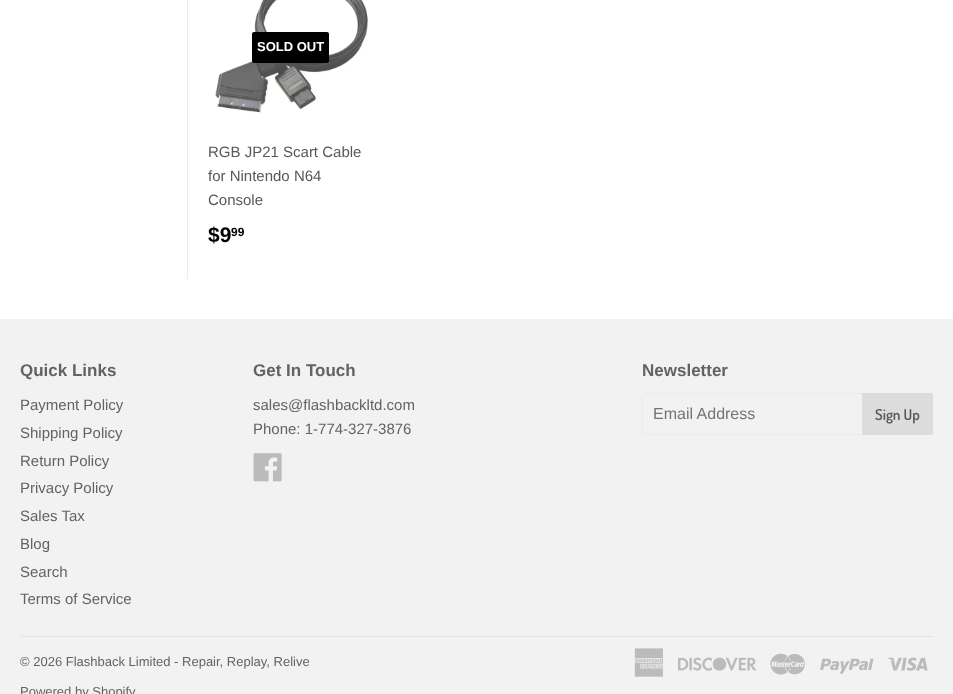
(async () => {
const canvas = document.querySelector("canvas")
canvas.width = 953
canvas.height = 694
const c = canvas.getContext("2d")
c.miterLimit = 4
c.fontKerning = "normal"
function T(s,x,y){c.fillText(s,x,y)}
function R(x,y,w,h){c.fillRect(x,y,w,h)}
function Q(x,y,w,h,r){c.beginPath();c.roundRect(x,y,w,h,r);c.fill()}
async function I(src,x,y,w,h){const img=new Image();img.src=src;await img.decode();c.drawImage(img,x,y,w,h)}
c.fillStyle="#fff"
R(0,0,953,694)
c.fillStyle="#ececec"
R(187,0,1,279)
await I("1.png",215,0,153,113)
c.fillStyle="#000"
Q(252,32,77,31,2)
c.font="bold 13px Liberation Sans"
c.fillStyle="#fff"
T("SOLD OUT",257,51)
c.font="15px Liberation Sans"
c.fillStyle="#585858"
T("RGB JP21 Scart Cable",208,157)
T("for Nintendo N64",208,181)
T("Console",208,205)
c.font="bold 21px Liberation Sans"
c.fillStyle="#000"
T("$9",208,242)
c.font="bold 12px Liberation Sans"
T("99",231,236)
c.fillStyle="#f2f2f2"
R(0,319,953,375)
c.font="bold 17px Liberation Sans"
c.fillStyle="#636363"
T("Quick Links",20,376)
c.font="15px Liberation Sans"
T("Payment Policy",20,410)
T("Shipping Policy",20,438)
T("Return Policy",20,466)
T("Privacy Policy",20,493)
T("Sales Tax",20,521)
T("Blog",20,549)
T("Search",20,577)
T("Terms of Service",20,604)
c.font="bold 17px Liberation Sans"
T("Get In Touch",253,376)
c.font="15px Liberation Sans"
T("sales@flashbackltd.com",253,410)
T("Phone: 1-774-327-3876",253,434)
await I("2.png",253,453,29,29)
c.font="bold 17px Liberation Sans"
T("Newsletter",642,376)
c.fillStyle="#ececec"
R(643,393,219,1)
R(643,434,219,1)
R(642,394,1,40)
c.font="16px Liberation Sans"
c.fillStyle="#757575"
T("Email Address",653,419)
c.fillStyle="#dcdcdc"
c.beginPath()
c.roundRect(862,393,71,42,[0,2,2,0])
c.fill()
c.font="600 15px Dosis"
c.fillStyle="#585858"
T("Sign Up",875,420)
c.fillStyle="#e5e5e5"
R(20,636,913,1)
c.font="13px Liberation Sans"
c.fillStyle="#636363"
T("© 2026 Flashback Limited - Repair, Replay, Relive",20,666)
T("Powered by Shopify",20,696)
await I("3.png",634,648,30,29)
await I("4.png",678,657,79,14)
await I("5.png",770,653,35,22)
await I("6.png",820,658,54,16)
await I("7.png",887,657,41,14)
})()
